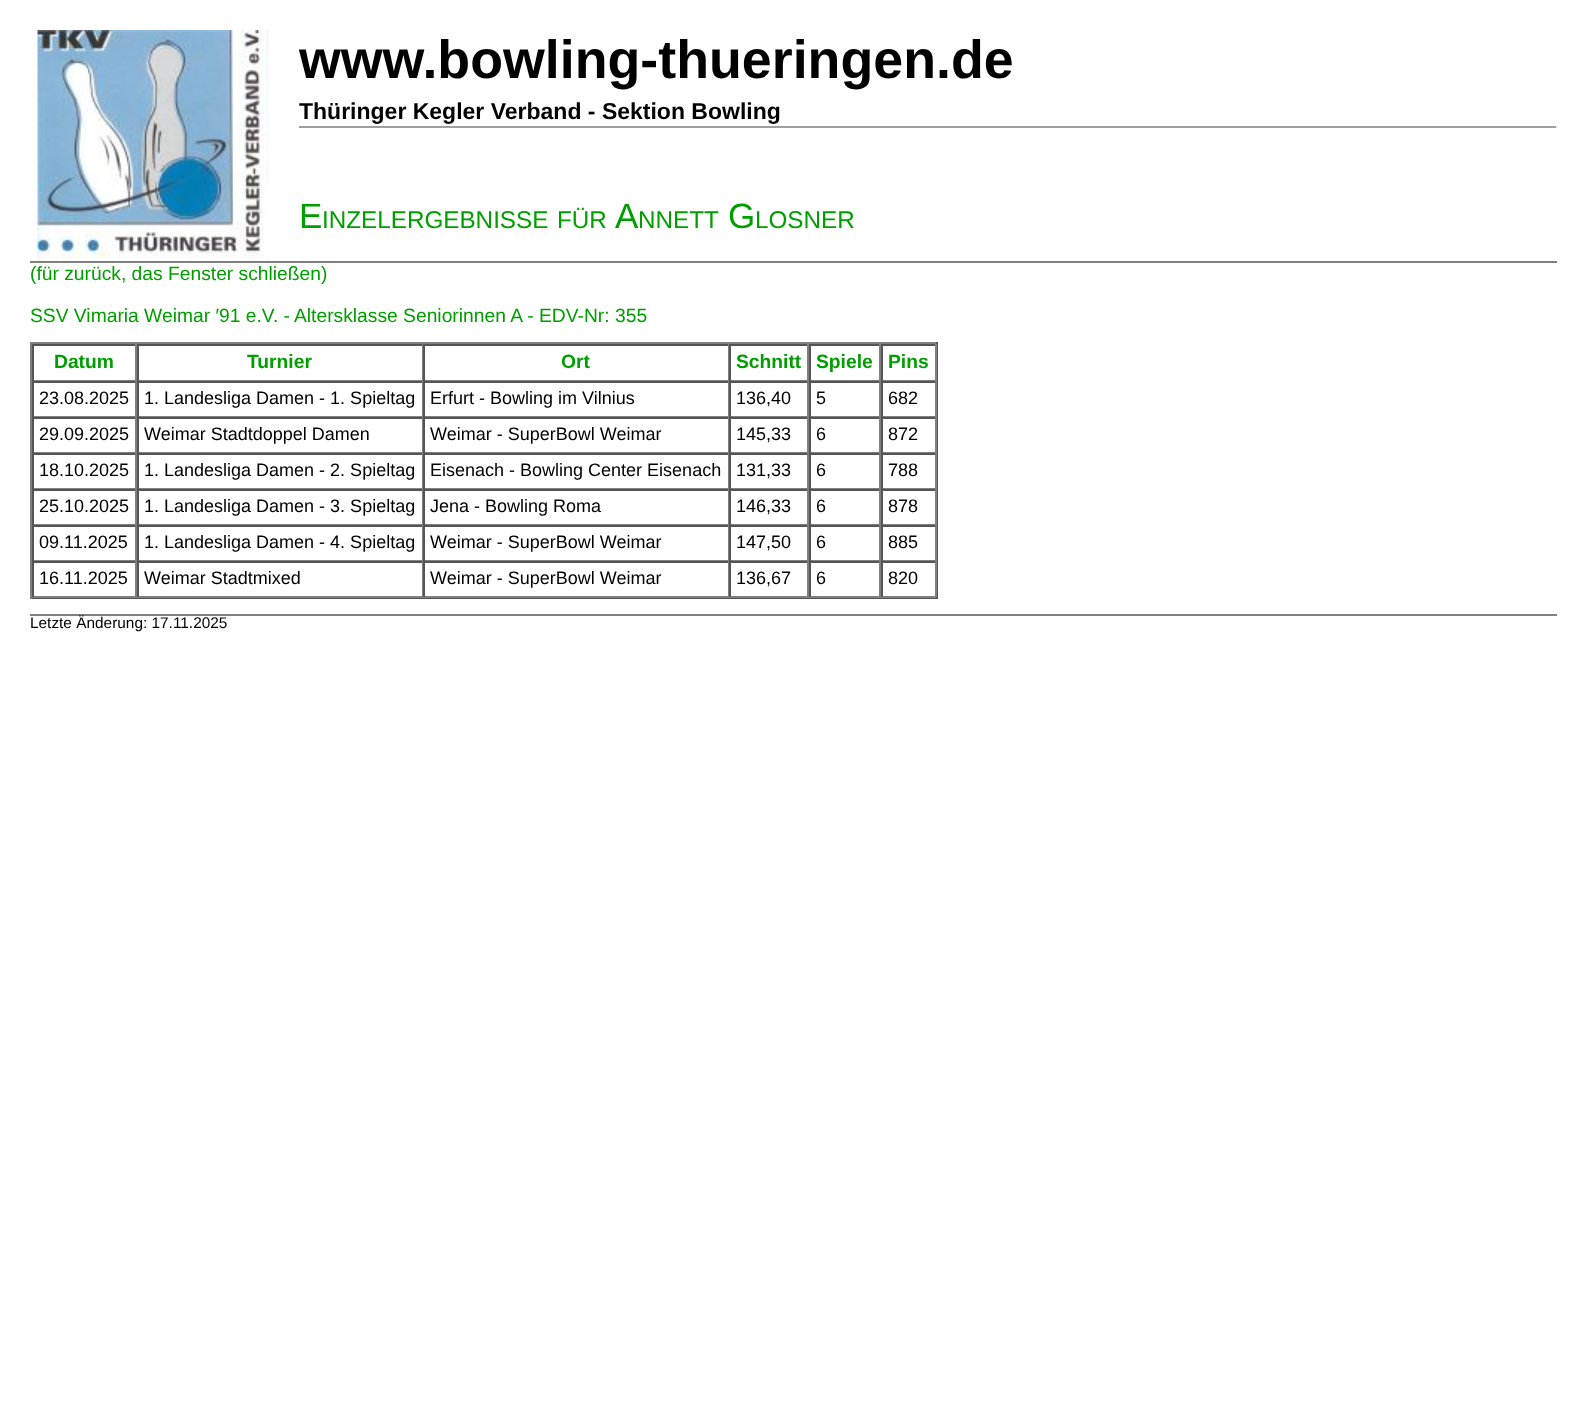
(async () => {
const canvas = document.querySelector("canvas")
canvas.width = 1586
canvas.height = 1402
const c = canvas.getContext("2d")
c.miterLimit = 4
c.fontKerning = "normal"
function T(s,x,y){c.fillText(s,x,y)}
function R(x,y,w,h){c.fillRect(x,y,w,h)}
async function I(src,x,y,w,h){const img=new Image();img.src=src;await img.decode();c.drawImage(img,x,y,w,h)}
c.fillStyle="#fff"
R(0,0,1586,1402)
c.fillStyle="#808080"
R(30,261,1527,2)
await I("1.png",37,30,232,231)
c.font="bold 53.75px Liberation Sans"
c.fillStyle="#000"
T("www.bowling-thueringen.de",299,78)
c.font="bold 23px Liberation Sans"
T("Thüringer Kegler Verband - Sektion Bowling",299,119)
c.fillStyle="#9f9f9f"
R(299,126,1258,2)
c.fillStyle="#eee"
R(1556,126,2,2)
c.font="35px Liberation Sans"
c.fillStyle="#009f00"
T("E",299,228)
c.font="24.25px Liberation Sans"
T("INZELERGEBNISSE",322,228)
T("FÜR",557,228)
c.font="35px Liberation Sans"
T("A",615,228)
c.font="24.25px Liberation Sans"
T("NNETT",638,228)
c.font="35px Liberation Sans"
T("G",728,228)
c.font="24.25px Liberation Sans"
T("LOSNER",755,228)
c.font="19.25px Liberation Sans"
T("(für zurück, das Fenster schließen)",30,280)
T("SSV Vimaria Weimar ′91 e.V. -",30,322)
T("Altersklasse Seniorinnen A - EDV-Nr: 355",294,322)
c.fillStyle="#808080"
R(30,342,908,2)
c.fillStyle="#555"
R(936,342,2,257)
R(30,597,908,2)
c.fillStyle="#808080"
R(30,342,2,257)
c.fillStyle="#555"
R(32,344,904,2)
c.fillStyle="#808080"
R(135,344,2,37)
R(32,380,105,1)
c.fillStyle="#555"
R(32,344,2,37)
c.font="bold 19.25px Liberation Sans"
c.fillStyle="#009f00"
T("Datum",54,368)
c.fillStyle="#808080"
R(422,344,1,37)
R(137,380,286,1)
c.fillStyle="#555"
R(137,344,2,37)
c.fillStyle="#009f00"
T("Turnier",247,368)
c.fillStyle="#808080"
R(728,344,1,37)
R(423,380,306,1)
c.fillStyle="#555"
R(423,344,2,37)
c.fillStyle="#009f00"
T("Ort",561,368)
c.fillStyle="#808080"
R(807,344,2,37)
R(729,380,80,1)
c.fillStyle="#555"
R(729,344,2,37)
c.fillStyle="#009f00"
T("Schnitt",736,368)
c.fillStyle="#808080"
R(879,344,2,37)
R(809,380,72,1)
c.fillStyle="#555"
R(809,344,2,37)
c.fillStyle="#009f00"
T("Spiele",816,368)
c.fillStyle="#808080"
R(935,344,2,37)
R(881,380,55,1)
c.fillStyle="#555"
R(881,344,2,37)
c.fillStyle="#009f00"
T("Pins",888,368)
c.fillStyle="#555"
R(32,381,904,2)
c.fillStyle="#808080"
R(135,381,2,36)
R(32,416,105,1)
c.fillStyle="#555"
R(32,381,2,36)
c.font="18px Liberation Sans"
c.fillStyle="#000"
T("23.08.2025",39,404)
c.fillStyle="#808080"
R(422,381,1,36)
R(137,416,286,1)
c.fillStyle="#555"
R(137,381,2,36)
c.fillStyle="#000"
T("1. Landesliga Damen - 1. Spieltag",144,404)
c.fillStyle="#808080"
R(728,381,1,36)
R(423,416,306,1)
c.fillStyle="#555"
R(423,381,2,36)
c.fillStyle="#000"
T("Erfurt - Bowling im Vilnius",430,404)
c.fillStyle="#808080"
R(807,381,2,36)
R(729,416,80,1)
c.fillStyle="#555"
R(729,381,2,36)
c.fillStyle="#000"
T("136,40",736,404)
c.fillStyle="#808080"
R(879,381,2,36)
R(809,416,72,1)
c.fillStyle="#555"
R(809,381,2,36)
c.fillStyle="#000"
T("5",816,404)
c.fillStyle="#808080"
R(935,381,2,36)
R(881,416,55,1)
c.fillStyle="#555"
R(881,381,2,36)
c.fillStyle="#000"
T("682",888,404)
c.fillStyle="#555"
R(32,417,904,2)
c.fillStyle="#808080"
R(135,417,2,36)
R(32,452,105,1)
c.fillStyle="#555"
R(32,417,2,36)
c.fillStyle="#000"
T("29.09.2025",39,440)
c.fillStyle="#808080"
R(422,417,1,36)
R(137,452,286,1)
c.fillStyle="#555"
R(137,417,2,36)
c.fillStyle="#000"
T("Weimar Stadtdoppel Damen",144,440)
c.fillStyle="#808080"
R(728,417,1,36)
R(423,452,306,1)
c.fillStyle="#555"
R(423,417,2,36)
c.fillStyle="#000"
T("Weimar - SuperBowl Weimar",430,440)
c.fillStyle="#808080"
R(807,417,2,36)
R(729,452,80,1)
c.fillStyle="#555"
R(729,417,2,36)
c.fillStyle="#000"
T("145,33",736,440)
c.fillStyle="#808080"
R(879,417,2,36)
R(809,452,72,1)
c.fillStyle="#555"
R(809,417,2,36)
c.fillStyle="#000"
T("6",816,440)
c.fillStyle="#808080"
R(935,417,2,36)
R(881,452,55,1)
c.fillStyle="#555"
R(881,417,2,36)
c.fillStyle="#000"
T("872",888,440)
c.fillStyle="#555"
R(32,453,904,2)
c.fillStyle="#808080"
R(135,453,2,36)
R(32,488,105,1)
c.fillStyle="#555"
R(32,453,2,36)
c.fillStyle="#000"
T("18.10.2025",39,476)
c.fillStyle="#808080"
R(422,453,1,36)
R(137,488,286,1)
c.fillStyle="#555"
R(137,453,2,36)
c.fillStyle="#000"
T("1. Landesliga Damen - 2. Spieltag",144,476)
c.fillStyle="#808080"
R(728,453,1,36)
R(423,488,306,1)
c.fillStyle="#555"
R(423,453,2,36)
c.fillStyle="#000"
T("Eisenach - Bowling Center Eisenach",430,476)
c.fillStyle="#808080"
R(807,453,2,36)
R(729,488,80,1)
c.fillStyle="#555"
R(729,453,2,36)
c.fillStyle="#000"
T("131,33",736,476)
c.fillStyle="#808080"
R(879,453,2,36)
R(809,488,72,1)
c.fillStyle="#555"
R(809,453,2,36)
c.fillStyle="#000"
T("6",816,476)
c.fillStyle="#808080"
R(935,453,2,36)
R(881,488,55,1)
c.fillStyle="#555"
R(881,453,2,36)
c.fillStyle="#000"
T("788",888,476)
c.fillStyle="#555"
R(32,489,904,2)
c.fillStyle="#808080"
R(135,489,2,36)
R(32,524,105,1)
c.fillStyle="#555"
R(32,489,2,36)
c.fillStyle="#000"
T("25.10.2025",39,512)
c.fillStyle="#808080"
R(422,489,1,36)
R(137,524,286,1)
c.fillStyle="#555"
R(137,489,2,36)
c.fillStyle="#000"
T("1. Landesliga Damen - 3. Spieltag",144,512)
c.fillStyle="#808080"
R(728,489,1,36)
R(423,524,306,1)
c.fillStyle="#555"
R(423,489,2,36)
c.fillStyle="#000"
T("Jena - Bowling Roma",430,512)
c.fillStyle="#808080"
R(807,489,2,36)
R(729,524,80,1)
c.fillStyle="#555"
R(729,489,2,36)
c.fillStyle="#000"
T("146,33",736,512)
c.fillStyle="#808080"
R(879,489,2,36)
R(809,524,72,1)
c.fillStyle="#555"
R(809,489,2,36)
c.fillStyle="#000"
T("6",816,512)
c.fillStyle="#808080"
R(935,489,2,36)
R(881,524,55,1)
c.fillStyle="#555"
R(881,489,2,36)
c.fillStyle="#000"
T("878",888,512)
c.fillStyle="#555"
R(32,525,904,2)
c.fillStyle="#808080"
R(135,525,2,36)
R(32,560,105,1)
c.fillStyle="#555"
R(32,525,2,36)
c.fillStyle="#000"
T("09.11.2025",39,548)
c.fillStyle="#808080"
R(422,525,1,36)
R(137,560,286,1)
c.fillStyle="#555"
R(137,525,2,36)
c.fillStyle="#000"
T("1. Landesliga Damen - 4. Spieltag",144,548)
c.fillStyle="#808080"
R(728,525,1,36)
R(423,560,306,1)
c.fillStyle="#555"
R(423,525,2,36)
c.fillStyle="#000"
T("Weimar - SuperBowl Weimar",430,548)
c.fillStyle="#808080"
R(807,525,2,36)
R(729,560,80,1)
c.fillStyle="#555"
R(729,525,2,36)
c.fillStyle="#000"
T("147,50",736,548)
c.fillStyle="#808080"
R(879,525,2,36)
R(809,560,72,1)
c.fillStyle="#555"
R(809,525,2,36)
c.fillStyle="#000"
T("6",816,548)
c.fillStyle="#808080"
R(935,525,2,36)
R(881,560,55,1)
c.fillStyle="#555"
R(881,525,2,36)
c.fillStyle="#000"
T("885",888,548)
c.fillStyle="#555"
R(32,561,904,2)
c.fillStyle="#808080"
R(135,561,2,36)
R(32,596,105,2)
c.fillStyle="#555"
R(32,561,2,36)
c.fillStyle="#000"
T("16.11.2025",39,584)
c.fillStyle="#808080"
R(422,561,1,36)
R(137,596,286,2)
c.fillStyle="#555"
R(137,561,2,36)
c.fillStyle="#000"
T("Weimar Stadtmixed",144,584)
c.fillStyle="#808080"
R(728,561,1,36)
R(423,596,306,2)
c.fillStyle="#555"
R(423,561,2,36)
c.fillStyle="#000"
T("Weimar - SuperBowl Weimar",430,584)
c.fillStyle="#808080"
R(807,561,2,36)
R(729,596,80,2)
c.fillStyle="#555"
R(729,561,2,36)
c.fillStyle="#000"
T("136,67",736,584)
c.fillStyle="#808080"
R(879,561,2,36)
R(809,596,72,2)
c.fillStyle="#555"
R(809,561,2,36)
c.fillStyle="#000"
T("6",816,584)
c.fillStyle="#808080"
R(935,561,2,36)
R(881,596,55,2)
c.fillStyle="#555"
R(881,561,2,36)
c.fillStyle="#000"
T("820",888,584)
c.fillStyle="#808080"
R(30,614,1527,2)
c.font="15.4px Liberation Sans"
c.fillStyle="#000"
T("Letzte Änderung: 17.11.2025",30,628)
})()
